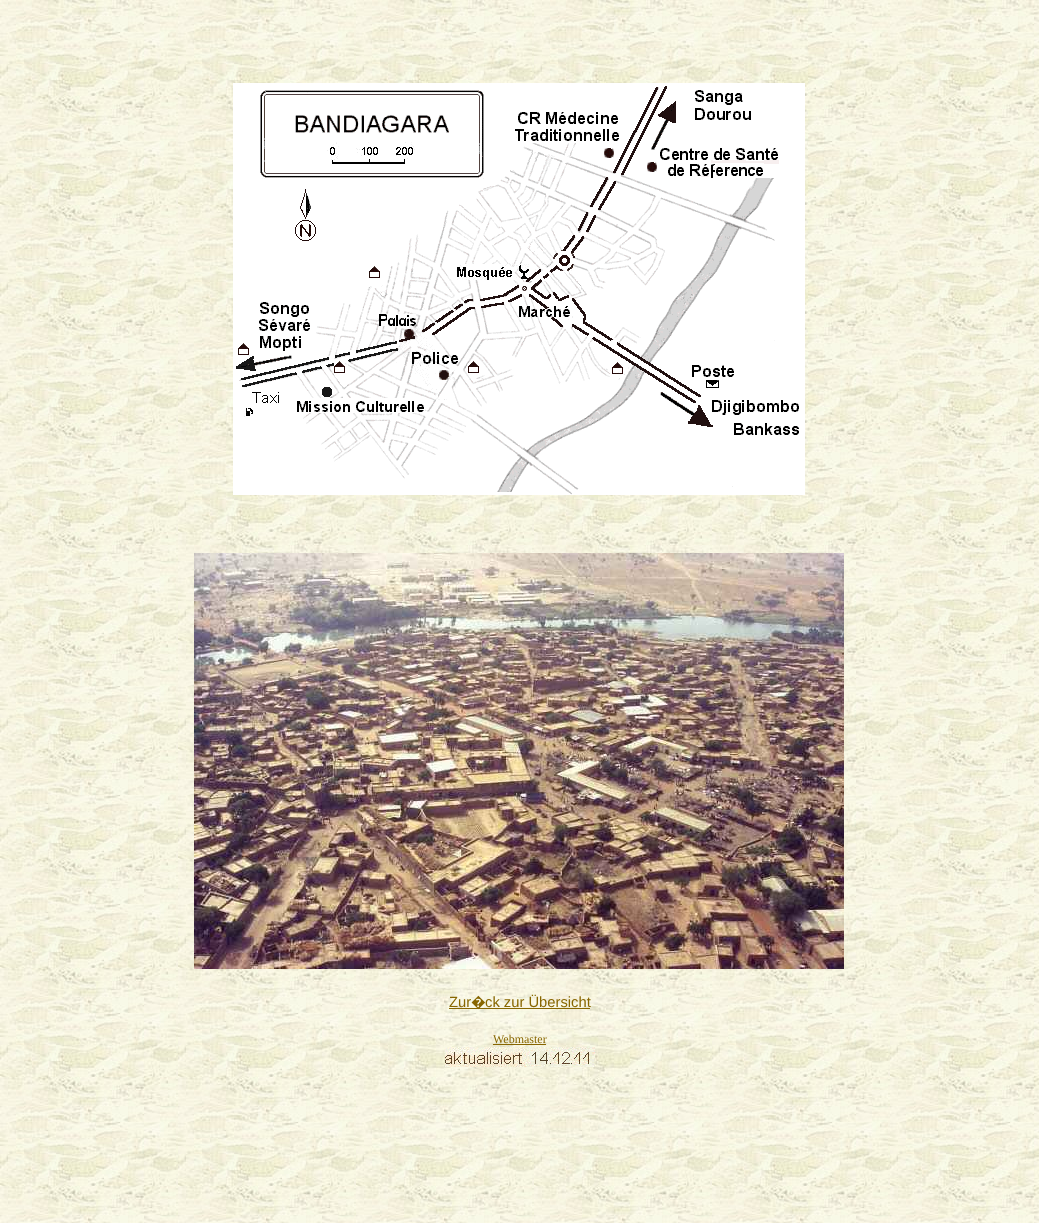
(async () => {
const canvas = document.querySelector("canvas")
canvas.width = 1039
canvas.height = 1223
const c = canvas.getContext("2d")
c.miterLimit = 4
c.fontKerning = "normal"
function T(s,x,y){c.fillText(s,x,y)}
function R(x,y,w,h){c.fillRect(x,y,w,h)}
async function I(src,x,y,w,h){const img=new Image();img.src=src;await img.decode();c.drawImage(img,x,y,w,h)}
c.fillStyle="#fff"
R(0,0,1039,1223)
await I("1.png",0,0,1039,1223)
await I("2.png",233,83,572,412)
await I("3.png",194,553,650,416)
c.font="14.75px Liberation Sans"
c.fillStyle="#860"
T("Zur",449,1007)
R(449,1008,141,1)
c.font="14.75px Noto Sans"
T("�",471,1007)
c.font="14.75px Liberation Sans"
T("ck zur Übersicht",485,1007)
c.font="12px Liberation Serif"
T("Webmaster",493,1043)
R(493,1044,53,1)
await I("4.png",445,1047,150,20)
})()
